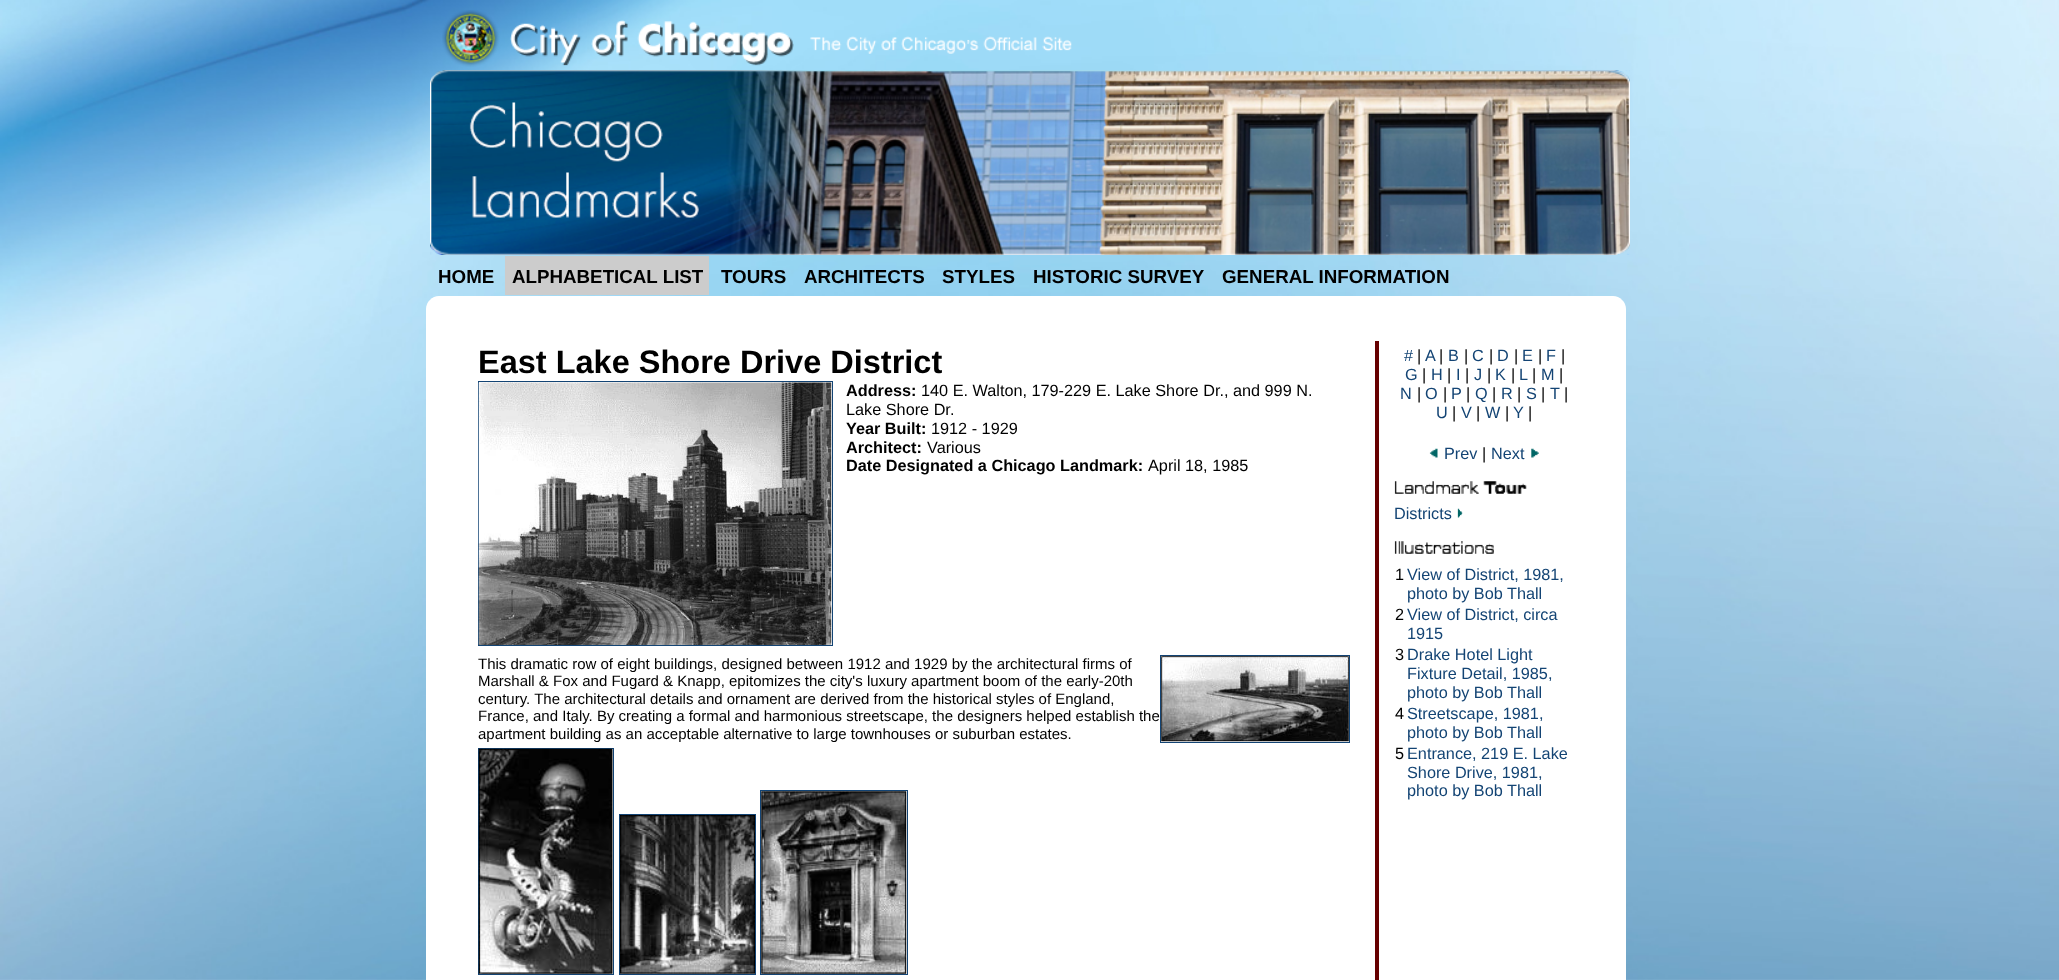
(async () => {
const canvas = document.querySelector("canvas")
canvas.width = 2059
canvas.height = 980
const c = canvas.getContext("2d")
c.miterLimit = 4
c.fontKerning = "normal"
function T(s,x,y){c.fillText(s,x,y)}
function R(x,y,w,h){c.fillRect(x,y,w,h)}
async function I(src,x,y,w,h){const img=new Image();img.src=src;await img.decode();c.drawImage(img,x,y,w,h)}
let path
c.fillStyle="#fff"
R(0,0,2059,980)
await I("1.png",0,979,2059,1)
await I("2.png",0,0,2059,980)
await I("3.png",442,10,630,57)
await I("4.png",430,70,1200,185)
c.font="bold 18.75px Liberation Sans"
c.fillStyle="#000"
T("HOME",438,283)
c.fillStyle="#ccc"
R(505,256,204,39)
c.fillStyle="#000"
T("ALPHABETICAL LIST",512,283)
T("TOURS",721,283)
T("ARCHITECTS",804,283)
T("STYLES",942,283)
T("HISTORIC SURVEY",1033,283)
T("GENERAL INFORMATION",1222,283)
c.fillStyle="#fff"
path = new Path2D("M439 296h1174c7 0 13 6 13 13v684h-1200v-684c0-7 6-13 13-13z")
c.fill(path)
c.font="bold 32.5px Liberation Sans"
c.fillStyle="#000"
T("East Lake Shore Drive District",478,373)
c.strokeStyle="#134474"
c.strokeRect(478.5,381.5,354,264)
await I("5.png",478,382,354,263)
c.font="bold 16.25px Liberation Sans"
T("Address:",846,396)
c.font="16.25px Liberation Sans"
T("140 E. Walton, 179-229 E. Lake Shore Dr., and 999 N.",921,396)
T("Lake Shore Dr.",846,415)
c.font="bold 16.25px Liberation Sans"
T("Year Built:",846,434)
c.font="16.25px Liberation Sans"
T("1912 - 1929",931,434)
c.font="bold 16.25px Liberation Sans"
T("Architect:",846,453)
c.font="16.25px Liberation Sans"
T("Various",927,453)
c.font="bold 16.25px Liberation Sans"
T("Date Designated a Chicago Landmark:",846,471)
c.font="16.25px Liberation Sans"
T("April 18, 1985",1148,471)
c.font="15px Liberation Sans"
T("This dramatic row of eight buildings, designed between 1912 and 1929 by the architectural firms of",478,669)
c.strokeRect(1160.5,655.5,189,87)
await I("6.png",1161,656,188,86)
T("Marshall & Fox and Fugard & Knapp, epitomizes the city's luxury apartment boom of the early-20th",478,686)
T("century. The architectural details and ornament are derived from the historical styles of England,",478,704)
T("France, and Italy. By creating a formal and harmonious streetscape, the designers helped establish the",478,721)
T("apartment building as an acceptable alternative to large townhouses or suburban estates.",478,739)
c.strokeRect(478.5,748.5,135,226)
await I("7.png",478,748,135,226)
c.strokeRect(760.5,790.5,147,184)
c.strokeRect(619.5,814.5,136,160)
await I("8.png",761,791,146,183)
await I("9.png",620,815,135,159)
c.fillStyle="#600"
R(1375,341,4,639)
c.font="16.25px Liberation Sans"
c.fillStyle="#134474"
T("#",1404,361)
c.fillStyle="#000"
T("|",1417,361)
c.fillStyle="#134474"
T("A",1425,361)
c.fillStyle="#000"
T("|",1439,361)
c.fillStyle="#134474"
T("B",1448,361)
c.fillStyle="#000"
T("|",1464,361)
c.fillStyle="#134474"
T("C",1472,361)
c.fillStyle="#000"
T("|",1489,361)
c.fillStyle="#134474"
T("D",1497,361)
c.fillStyle="#000"
T("|",1514,361)
c.fillStyle="#134474"
T("E",1522,361)
c.fillStyle="#000"
T("|",1538,361)
c.fillStyle="#134474"
T("F",1546,361)
c.fillStyle="#000"
T("|",1561,361)
c.fillStyle="#134474"
T("G",1405,380)
c.fillStyle="#000"
T("|",1422,380)
c.fillStyle="#134474"
T("H",1431,380)
c.fillStyle="#000"
T("|",1447,380)
c.fillStyle="#134474"
T("I",1456,380)
c.fillStyle="#000"
T("|",1465,380)
c.fillStyle="#134474"
T("J",1474,380)
c.fillStyle="#000"
T("|",1487,380)
c.fillStyle="#134474"
T("K",1495,380)
c.fillStyle="#000"
T("|",1511,380)
c.fillStyle="#134474"
T("L",1519,380)
c.fillStyle="#000"
T("|",1532,380)
c.fillStyle="#134474"
T("M",1541,380)
c.fillStyle="#000"
T("|",1559,380)
c.fillStyle="#134474"
T("N",1400,399)
c.fillStyle="#000"
T("|",1417,399)
c.fillStyle="#134474"
T("O",1425,399)
c.fillStyle="#000"
T("|",1443,399)
c.fillStyle="#134474"
T("P",1451,399)
c.fillStyle="#000"
T("|",1466,399)
c.fillStyle="#134474"
T("Q",1475,399)
c.fillStyle="#000"
T("|",1492,399)
c.fillStyle="#134474"
T("R",1501,399)
c.fillStyle="#000"
T("|",1517,399)
c.fillStyle="#134474"
T("S",1526,399)
c.fillStyle="#000"
T("|",1541,399)
c.fillStyle="#134474"
T("T",1550,399)
c.fillStyle="#000"
T("|",1564,399)
c.fillStyle="#134474"
T("U",1436,418)
c.fillStyle="#000"
T("|",1452,418)
c.fillStyle="#134474"
T("V",1461,418)
c.fillStyle="#000"
T("|",1476,418)
c.fillStyle="#134474"
T("W",1485,418)
c.fillStyle="#000"
T("|",1505,418)
c.fillStyle="#134474"
T("Y",1513,418)
c.fillStyle="#000"
T("|",1528,418)
await I("10.png",1429,448,9,10)
c.fillStyle="#134474"
T("Prev",1444,459)
c.fillStyle="#000"
T("|",1482,459)
c.fillStyle="#134474"
T("Next",1491,459)
await I("11.png",1531,448,8,10)
await I("12.png",1394,481,133,13)
T("Districts",1394,519)
await I("13.png",1457,508,6,10)
await I("14.png",1394,541,100,13)
c.fillStyle="#000"
T("1",1395,580)
c.fillStyle="#134474"
T("View of District, 1981,",1407,580)
T("photo by Bob Thall",1407,599)
c.fillStyle="#000"
T("2",1395,620)
c.fillStyle="#134474"
T("View of District, circa",1407,620)
T("1915",1407,639)
c.fillStyle="#000"
T("3",1395,660)
c.fillStyle="#134474"
T("Drake Hotel Light",1407,660)
T("Fixture Detail, 1985,",1407,679)
T("photo by Bob Thall",1407,698)
c.fillStyle="#000"
T("4",1395,719)
c.fillStyle="#134474"
T("Streetscape, 1981,",1407,719)
T("photo by Bob Thall",1407,738)
c.fillStyle="#000"
T("5",1395,759)
c.fillStyle="#134474"
T("Entrance, 219 E. Lake",1407,759)
T("Shore Drive, 1981,",1407,778)
T("photo by Bob Thall",1407,796)
})()
